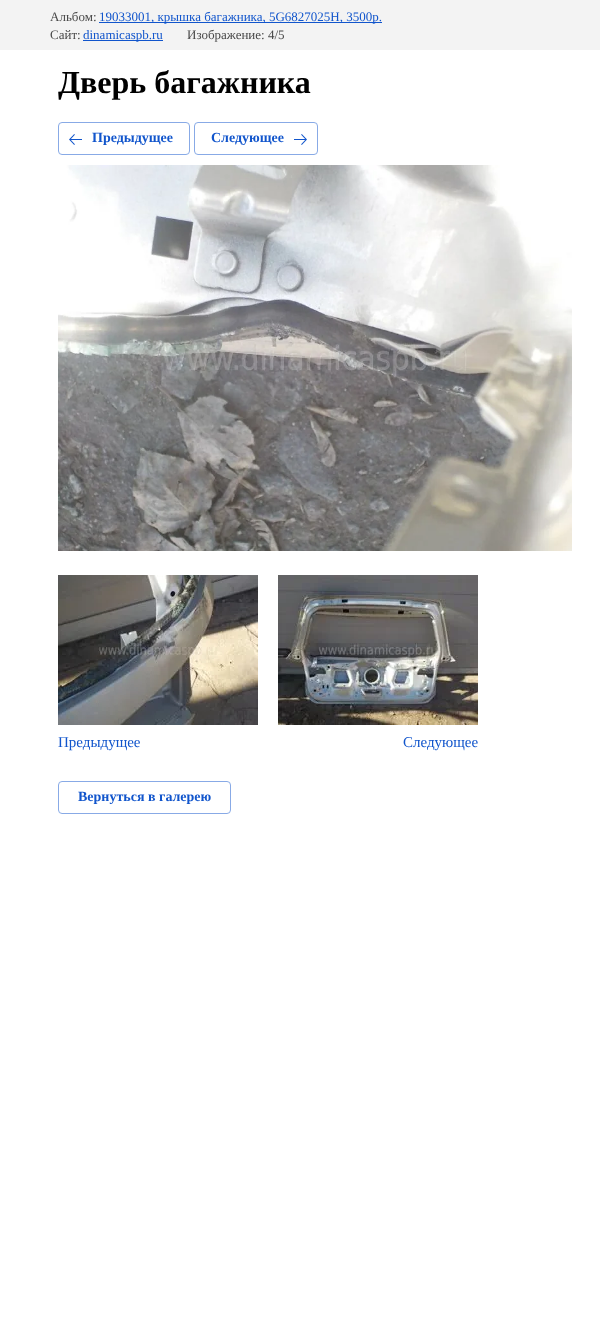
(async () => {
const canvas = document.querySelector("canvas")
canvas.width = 600
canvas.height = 1338
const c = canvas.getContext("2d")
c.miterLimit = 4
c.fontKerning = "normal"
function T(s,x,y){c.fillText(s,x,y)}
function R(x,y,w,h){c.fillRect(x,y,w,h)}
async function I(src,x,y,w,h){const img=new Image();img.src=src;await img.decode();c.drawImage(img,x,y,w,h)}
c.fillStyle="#fff"
R(0,0,600,1338)
c.fillStyle="#f3f3f3"
R(0,0,600,50)
c.font="13px Liberation Serif"
c.fillStyle="#484848"
T("Альбом:",50,21)
c.fillStyle="#15c"
R(99,22,283,1)
T("19033001, крышка багажника, 5G6827025H, 3500р.",99,21)
c.fillStyle="#484848"
T("Сайт:",50,39)
c.fillStyle="#15c"
R(83,40,80,1)
T("dinamicaspb.ru",83,39)
c.fillStyle="#484848"
T("Изображение: 4/5",187,39)
c.font="bold 32px Liberation Serif"
c.fillStyle="#000"
T("Дверь багажника",58,93)
c.beginPath()
c.roundRect(58.5,122.5,131,32,3.5)
c.strokeStyle="#88aae6"
c.stroke()
await I("1.png",69,134,13,11)
c.font="bold 14px Liberation Serif"
c.fillStyle="#15c"
T("Предыдущее",92,142)
c.beginPath()
c.roundRect(194.5,122.5,123,32,3.5)
c.stroke()
T("Следующее",211,142)
await I("2.png",294,134,13,11)
await I("3.png",58,165,514,386)
await I("4.png",58,575,200,150)
c.font="15px Liberation Serif"
T("Предыдущее",58,747)
await I("5.png",278,575,200,150)
T("Следующее",403,747)
c.beginPath()
c.roundRect(58.5,781.5,172,32,3.5)
c.stroke()
c.font="bold 14px Liberation Serif"
T("Вернуться в галерею",78,801)
})()
